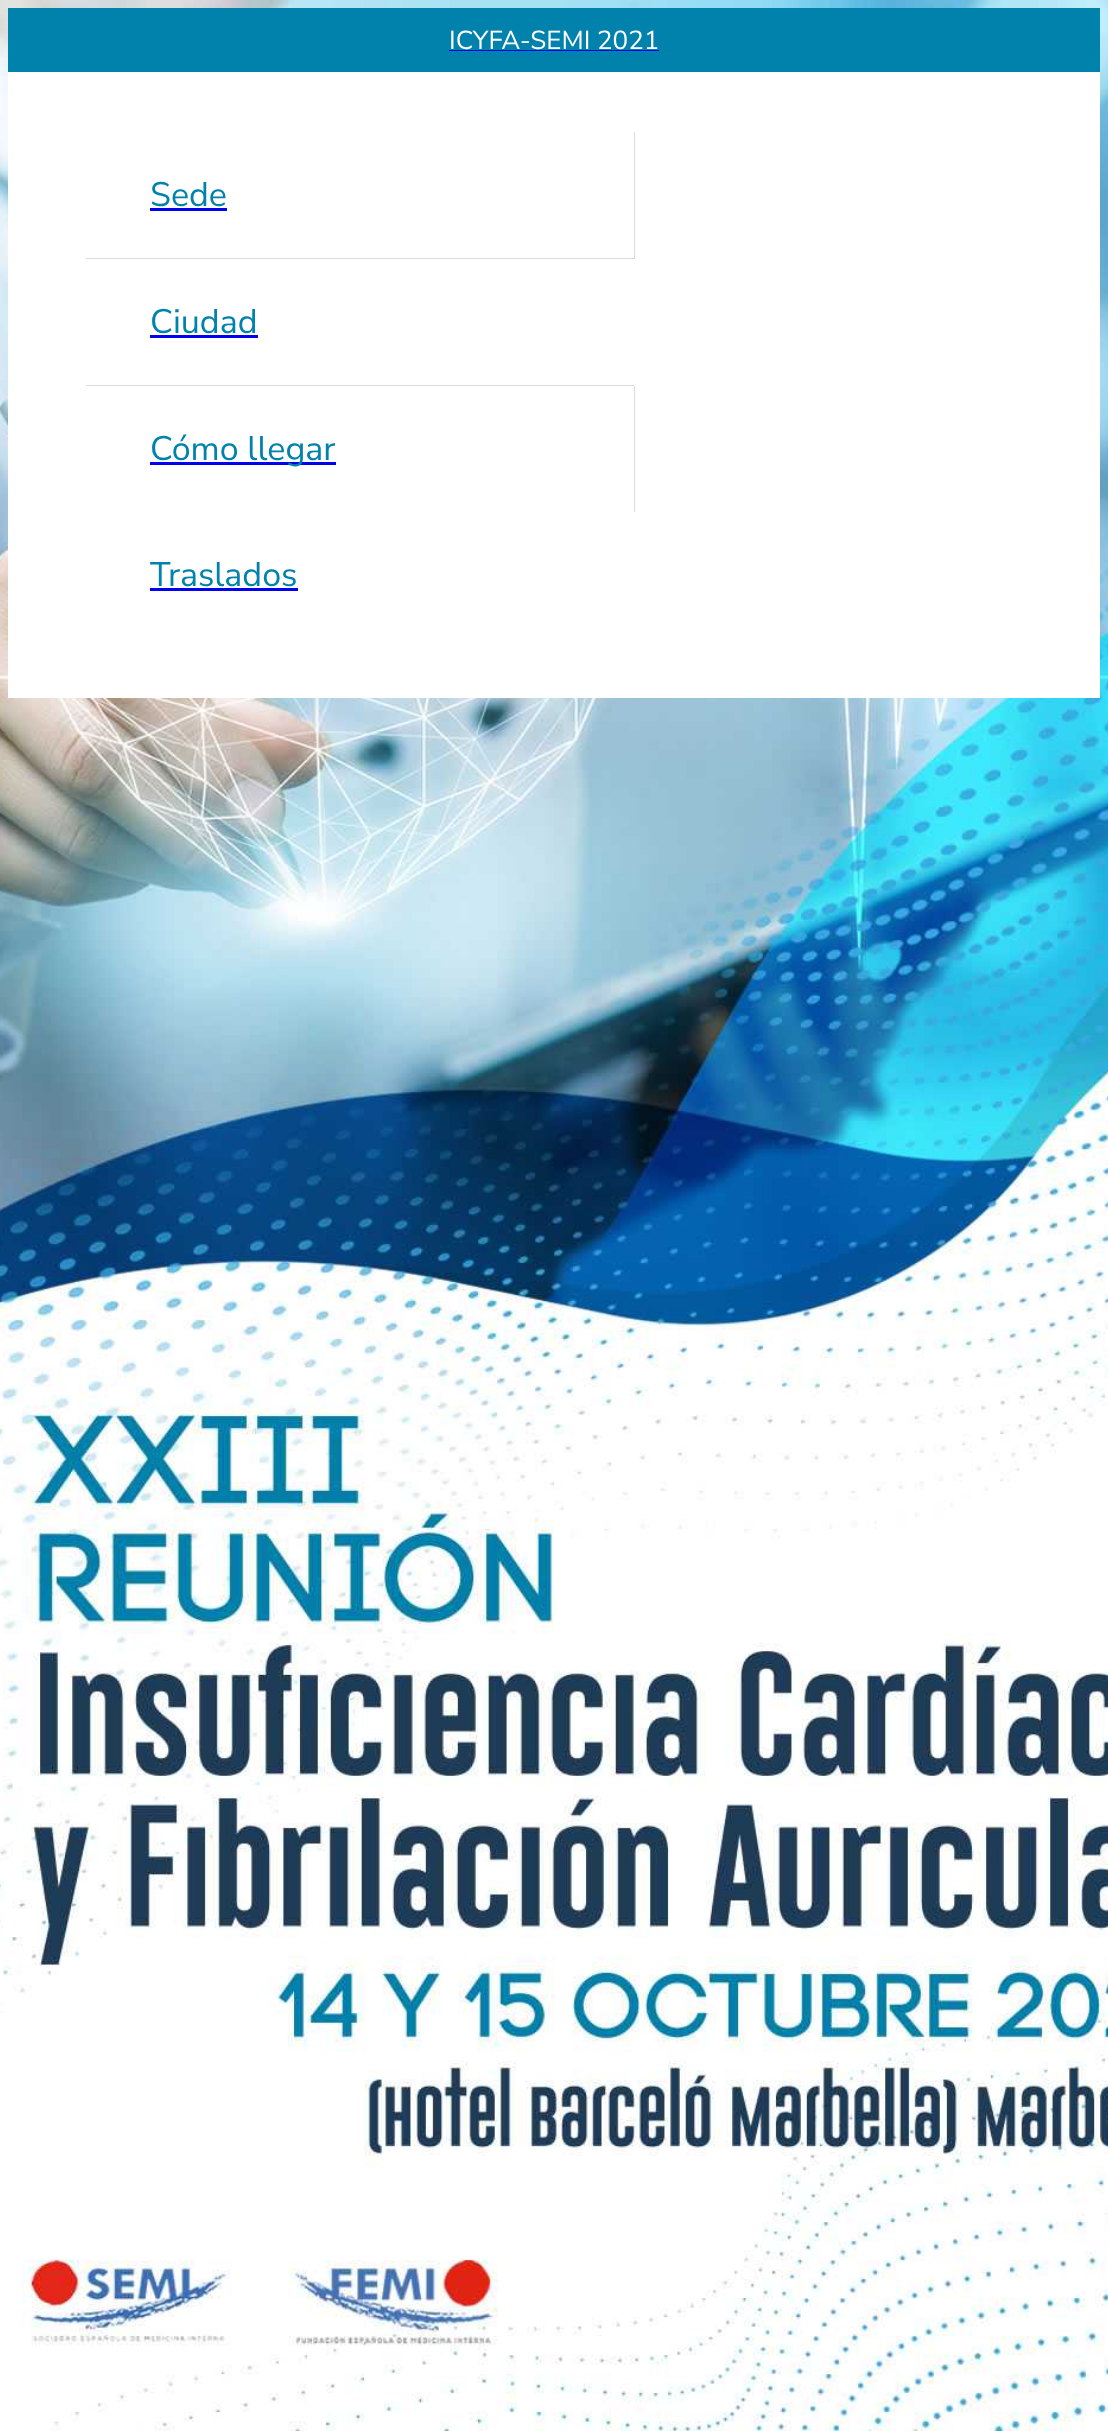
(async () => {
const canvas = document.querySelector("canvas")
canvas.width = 1108
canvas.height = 2431
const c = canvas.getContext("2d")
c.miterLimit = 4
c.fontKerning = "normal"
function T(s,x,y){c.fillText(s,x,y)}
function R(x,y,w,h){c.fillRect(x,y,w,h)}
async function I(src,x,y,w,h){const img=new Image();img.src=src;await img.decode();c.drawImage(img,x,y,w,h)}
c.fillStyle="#fff"
R(0,0,1108,2431)
await I("1.png",0,0,1108,2431)
c.fillStyle="#0082ad"
R(8,8,1092,64)
c.font="26px Nunito Sans"
c.fillStyle="#fff"
T("ICYFA-SEMI 2021",449,49)
c.fillStyle="#00e"
R(449,50,210,1)
c.fillStyle="#fff"
R(8,72,1092,626)
c.fillStyle="#dbdbdb"
R(634,132,1,127)
R(86,258,549,1)
c.font="34px Nunito Sans"
c.fillStyle="#0082ad"
T("Sede",150,206)
c.fillStyle="#00e"
R(150,208,77,3)
c.fillStyle="#dbdbdb"
R(86,385,548,1)
c.fillStyle="#0082ad"
T("Ciudad",150,333)
c.fillStyle="#00e"
R(150,335,108,3)
c.fillStyle="#dbdbdb"
R(634,386,1,126)
c.fillStyle="#00e"
R(150,462,186,3)
c.fillStyle="#0082ad"
T("Cómo llegar",150,460)
T("Traslados",150,586)
c.fillStyle="#00e"
R(150,588,148,3)
})()
